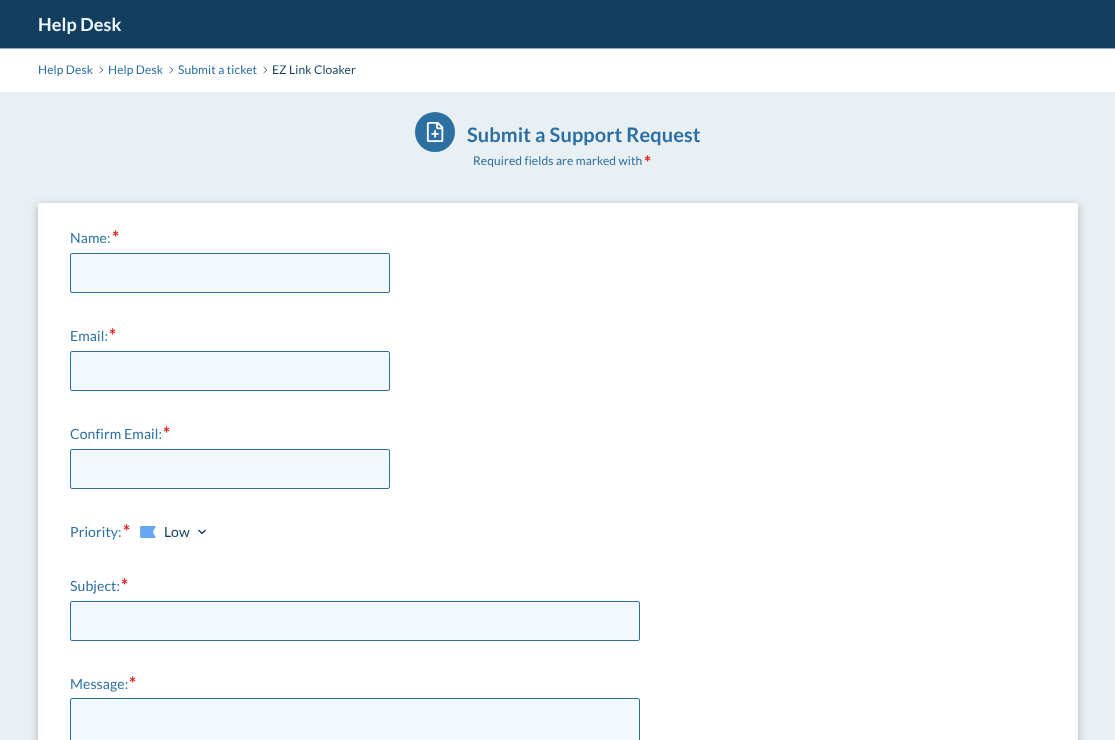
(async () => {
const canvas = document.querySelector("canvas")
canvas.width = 1115
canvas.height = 740
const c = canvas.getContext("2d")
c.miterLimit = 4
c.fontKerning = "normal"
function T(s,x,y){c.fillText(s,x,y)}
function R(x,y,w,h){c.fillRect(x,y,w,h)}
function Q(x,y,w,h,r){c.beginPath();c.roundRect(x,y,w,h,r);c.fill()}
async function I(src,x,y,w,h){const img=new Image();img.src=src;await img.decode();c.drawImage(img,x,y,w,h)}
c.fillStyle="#fff"
R(0,0,1115,740)
c.fillStyle="#133e5e"
R(0,0,1115,48)
c.fillStyle="#92a8b6"
R(0,48,1115,1)
c.letterSpacing="0.1px"
c.font="bold 18px Lato"
c.fillStyle="#edf6fb"
T("Help Desk",38,31)
c.font="12px Lato"
c.fillStyle="#2c70a2"
T("Help Desk",38,74)
await I("1.png",99,66,4,8)
T("Help Desk",108,74)
await I("1.png",169,66,4,8)
T("Submit a ticket",178,74)
await I("1.png",263,66,4,8)
c.fillStyle="#133e5e"
T("EZ Link Cloaker",272,74)
c.fillStyle="#e9f0f3"
R(0,92,1115,648)
c.fillStyle="#2c70a2"
c.beginPath()
c.arc(435,132,20,0,7)
c.fill()
await I("2.png",426,122,18,20)
c.font="bold 20px Lato"
T("Submit a Support Request",467,142)
c.font="12px Lato"
T("Required fields are marked with",473,165)
c.font="bold 18px Lato"
c.fillStyle="#e02020"
T("*",644,169)
c.fillStyle="#26282a4d"
c.filter="blur(4px)"
c.beginPath()
c.roundRect(38,205,1040,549,2)
c.fill()
c.filter="none"
c.fillStyle="#fff"
Q(38,203,1040,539,2)
c.font="14px Lato"
c.fillStyle="#2c70a2"
T("Name:",70,243)
c.font="bold 18px Lato"
c.fillStyle="#e02020"
T("*",112,244)
c.fillStyle="#f3faff"
c.beginPath()
c.roundRect(70.5,253.5,319,39,1.5)
c.fill()
c.strokeStyle="#2c70a2"
c.stroke()
c.font="14px Lato"
c.fillStyle="#2c70a2"
T("Email:",70,341)
c.font="bold 18px Lato"
c.fillStyle="#e02020"
T("*",109,342)
c.fillStyle="#f3faff"
c.beginPath()
c.roundRect(70.5,351.5,319,39,1.5)
c.fill()
c.stroke()
c.font="14px Lato"
c.fillStyle="#2c70a2"
T("Confirm Email:",70,439)
c.font="bold 18px Lato"
c.fillStyle="#e02020"
T("*",163,440)
c.fillStyle="#f3faff"
c.beginPath()
c.roundRect(70.5,449.5,319,39,1.5)
c.fill()
c.stroke()
c.font="14px Lato"
c.fillStyle="#2c70a2"
T("Priority:",70,537)
c.font="bold 18px Lato"
c.fillStyle="#e02020"
T("*",123,538)
await I("3.png",140,526,16,12)
c.font="14px Lato"
c.fillStyle="#133e5e"
T("Low",164,537)
await I("4.png",198,529,8,6)
c.fillStyle="#2c70a2"
T("Subject:",70,591)
c.font="bold 18px Lato"
c.fillStyle="#e02020"
T("*",121,592)
c.fillStyle="#f3faff"
c.beginPath()
c.roundRect(70.5,601.5,569,39,1.5)
c.fill()
c.stroke()
c.font="14px Lato"
c.fillStyle="#2c70a2"
T("Message:",70,689)
c.font="bold 18px Lato"
c.fillStyle="#e02020"
T("*",129,690)
c.fillStyle="#f3faff"
c.beginPath()
c.roundRect(70.5,698.5,569,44,1.5)
c.fill()
c.stroke()
})()
